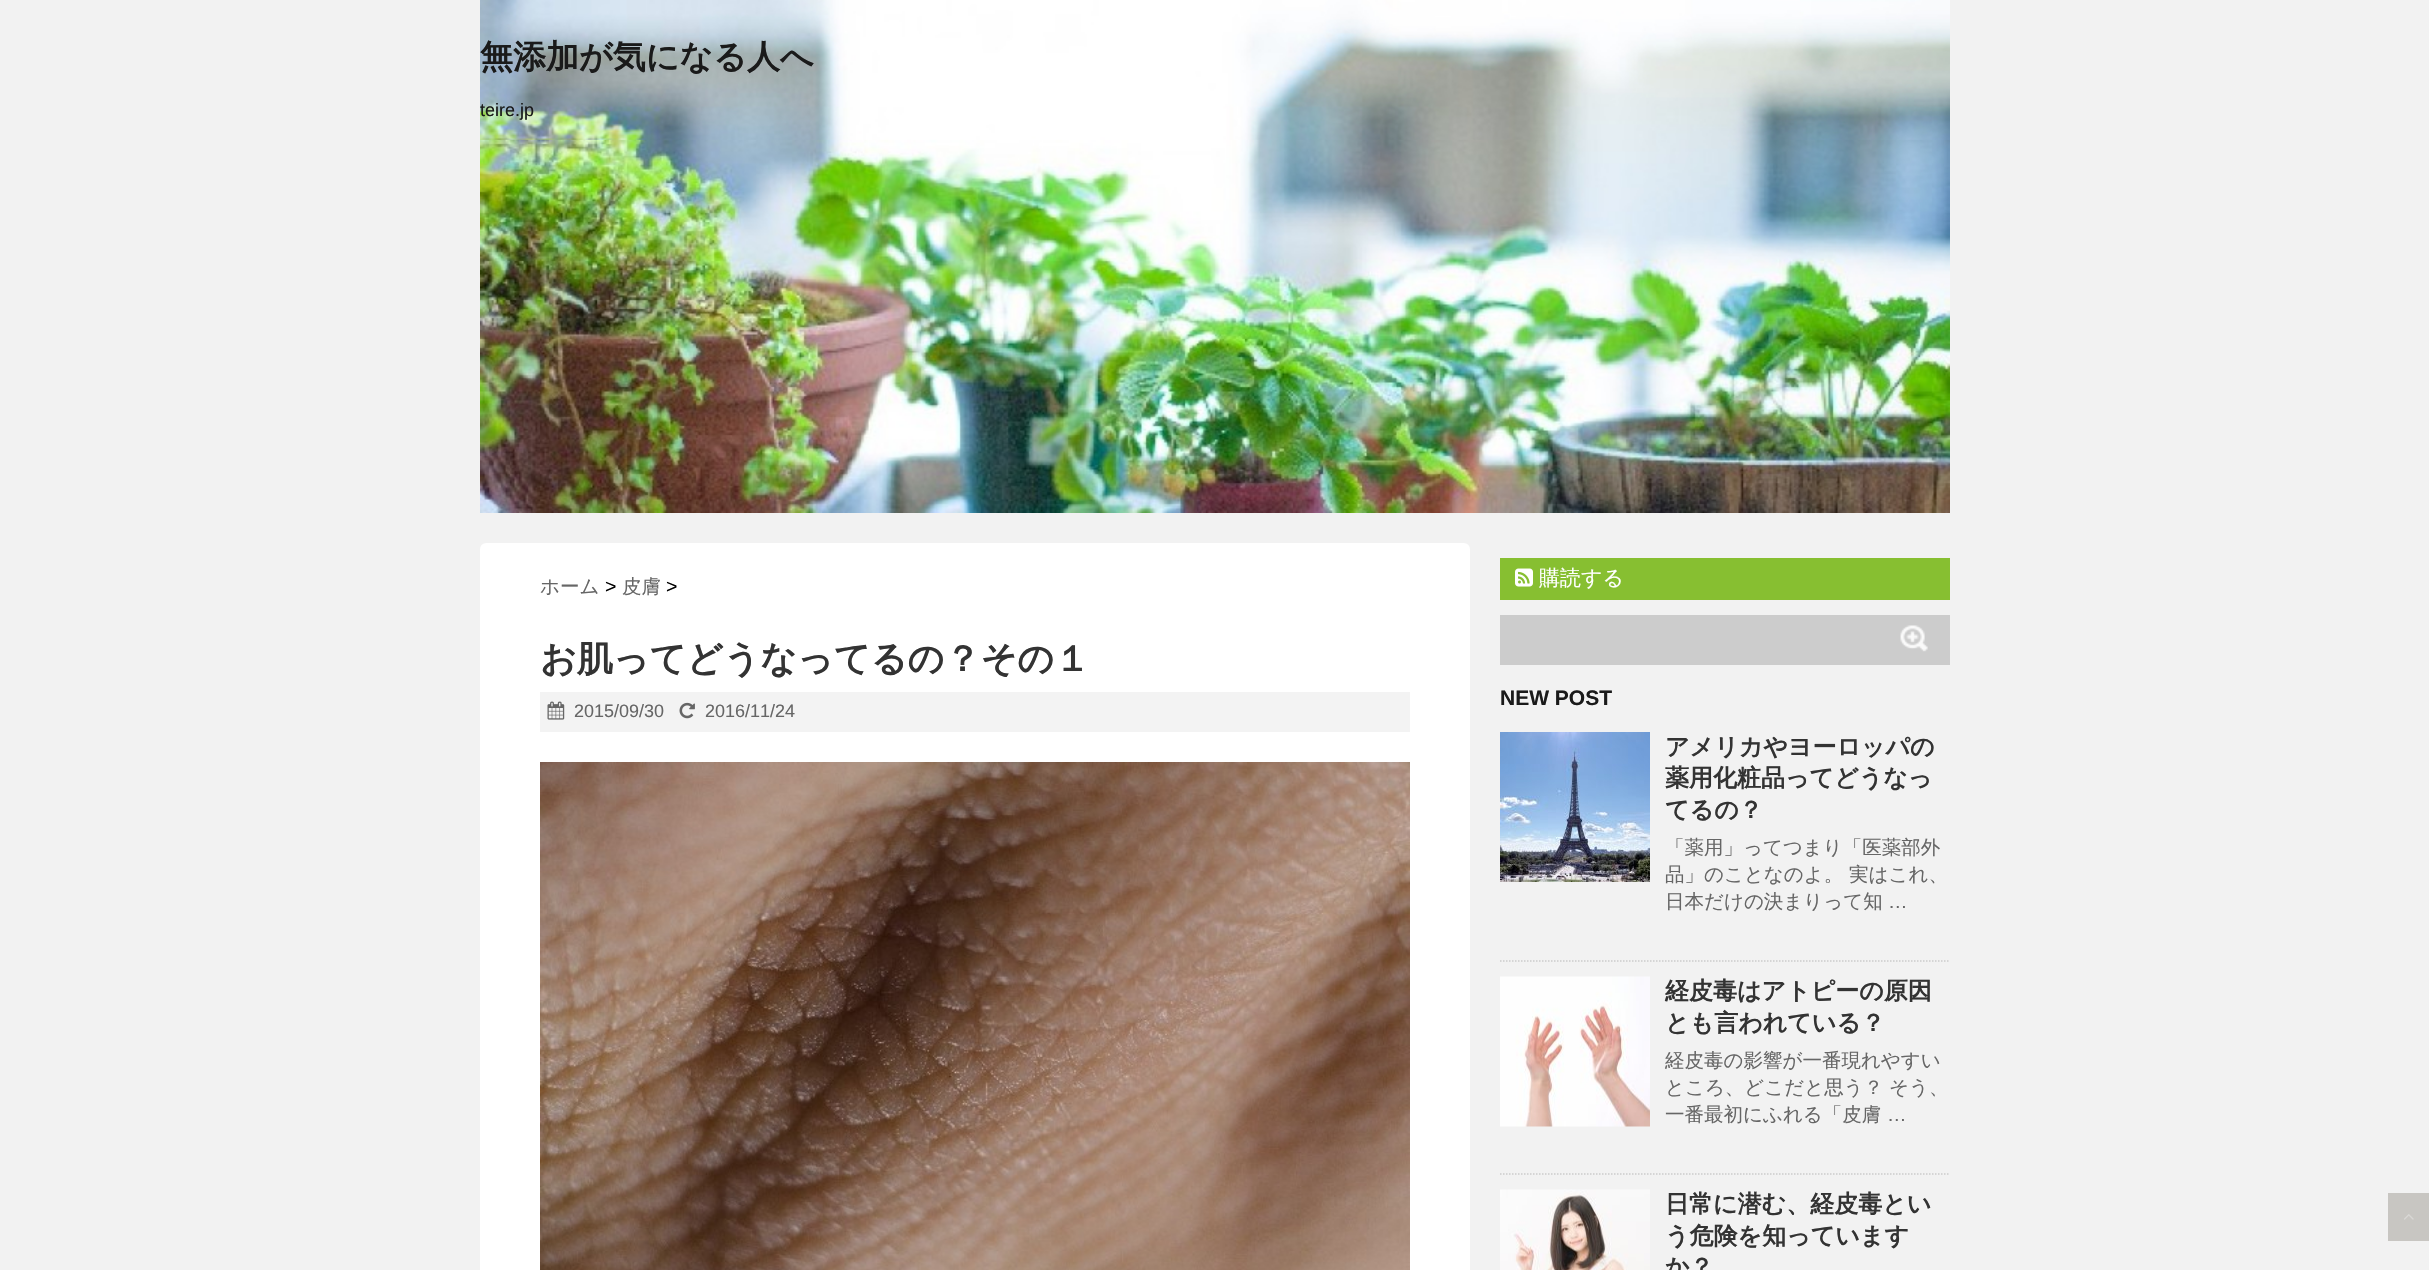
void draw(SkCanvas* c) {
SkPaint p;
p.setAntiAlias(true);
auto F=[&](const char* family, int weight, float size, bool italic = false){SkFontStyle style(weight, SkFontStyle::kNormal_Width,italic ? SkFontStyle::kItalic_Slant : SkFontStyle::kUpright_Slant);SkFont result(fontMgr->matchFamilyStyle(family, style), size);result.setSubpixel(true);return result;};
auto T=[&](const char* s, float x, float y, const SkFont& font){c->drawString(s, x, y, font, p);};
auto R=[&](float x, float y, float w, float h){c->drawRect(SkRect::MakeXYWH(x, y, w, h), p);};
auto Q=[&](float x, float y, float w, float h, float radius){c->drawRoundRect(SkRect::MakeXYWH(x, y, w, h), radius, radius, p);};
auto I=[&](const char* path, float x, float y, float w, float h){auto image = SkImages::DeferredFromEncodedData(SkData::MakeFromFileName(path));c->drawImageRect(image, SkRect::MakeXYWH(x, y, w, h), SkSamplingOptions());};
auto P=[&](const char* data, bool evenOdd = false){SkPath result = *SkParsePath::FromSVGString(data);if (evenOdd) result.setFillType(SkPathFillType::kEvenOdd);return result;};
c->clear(0xfff2f2f2);
I("1.png",480,0,1470,140);
auto f1 = F("WenQuanYi Zen Hei",700,33);
p.setColor(0xff1a1a1a);
T("無添加が気になる人へ",480,68,f1);
auto f2 = F("Liberation Sans",400,18);
T("teire.jp",480,116,f2);
I("2.png",480,139,1470,374);
p.setColor(0xffffffff);
Q(480,543,990,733,6);
auto f3 = F("WenQuanYi Zen Hei",500,19.5);
p.setColor(0xff666666);
T("ホーム",540,593,f3);
auto f4 = F("Liberation Sans",400,19.5);
p.setColor(0xff000000);
T(">",605,593,f4);
p.setColor(0xff666666);
T("皮膚",622,593,f3);
p.setColor(0xff000000);
T(">",666,593,f4);
auto f5 = F("WenQuanYi Zen Hei",700,36);
p.setColor(0xff333333);
T("お肌ってどうなってるの？その１",540,671,f5);
p.setColor(0xfff3f3f3);
R(540,692,870,40);
I("3.png",547,701,18,19);
p.setColor(0xff666666);
T("2015/09/30",574,717,f2);
I("4.png",679,702,16,17);
T("2016/11/24",705,717,f2);
I("5.png",540,762,870,508);
p.setColor(0xff87bf31);
R(1500,558,450,42);
I("6.png",1515,568,18,19);
auto f6 = F("WenQuanYi Zen Hei",500,21);
p.setColor(0xffffffff);
T("購読する",1539,585,f6);
p.setColor(0xffcccccc);
R(1500,615,450,50);
I("7.png",1900,625,28,27);
auto f7 = F("Liberation Sans",700,21);
p.setColor(0xff1a1a1a);
T("NEW POST",1500,705,f7);
p.setStroke(true);
p.setStrokeWidth(1.5);
p.setColor(0xffcccccc);
p.setPathEffect(SkDashPathEffect::Make({{1.5f,1.5f}}, 0));
c->drawPath(P("M1500 961h450"),p);
p.setPathEffect(nullptr);
I("8.png",1500,732,150,150);
auto f8 = F("WenQuanYi Zen Hei",700,24);
p.setStroke(false);
p.setColor(0xff333333);
T("アメリカやヨーロッパの",1665,755,f8);
T("薬用化粧品ってどうなっ",1665,786,f8);
T("てるの？",1665,818,f8);
p.setColor(0xff666666);
T("「薬用」ってつまり「医薬部外",1665,854,f3);
T("品」のことなのよ。 実はこれ、",1665,881,f3);
T("日本だけの決まりって知",1665,908,f3);
T("…",1888,908,f4);
p.setStroke(true);
p.setColor(0xffcccccc);
p.setPathEffect(SkDashPathEffect::Make({{1.5f,1.5f}}, 0));
c->drawPath(P("M1500 1174h450"),p);
p.setPathEffect(nullptr);
I("9.png",1500,976,150,151);
p.setStroke(false);
p.setColor(0xff333333);
T("経皮毒はアトピーの原因",1665,999,f8);
T("とも言われている？",1665,1031,f8);
p.setColor(0xff666666);
T("経皮毒の影響が一番現れやすい",1665,1067,f3);
T("ところ、どこだと思う？ そう、",1665,1094,f3);
T("一番最初にふれる「皮膚",1665,1121,f3);
T("…",1887,1121,f4);
I("10.png",1500,1189,150,81);
p.setColor(0xff333333);
T("日常に潜む、経皮毒とい",1665,1212,f8);
T("う危険を知っています",1665,1244,f8);
T("か？",1665,1275,f8);
p.setColor(0xffc8c6c2);
R(2388,1193,41,48);
I("11.png",2404,1214,10,6);
}
